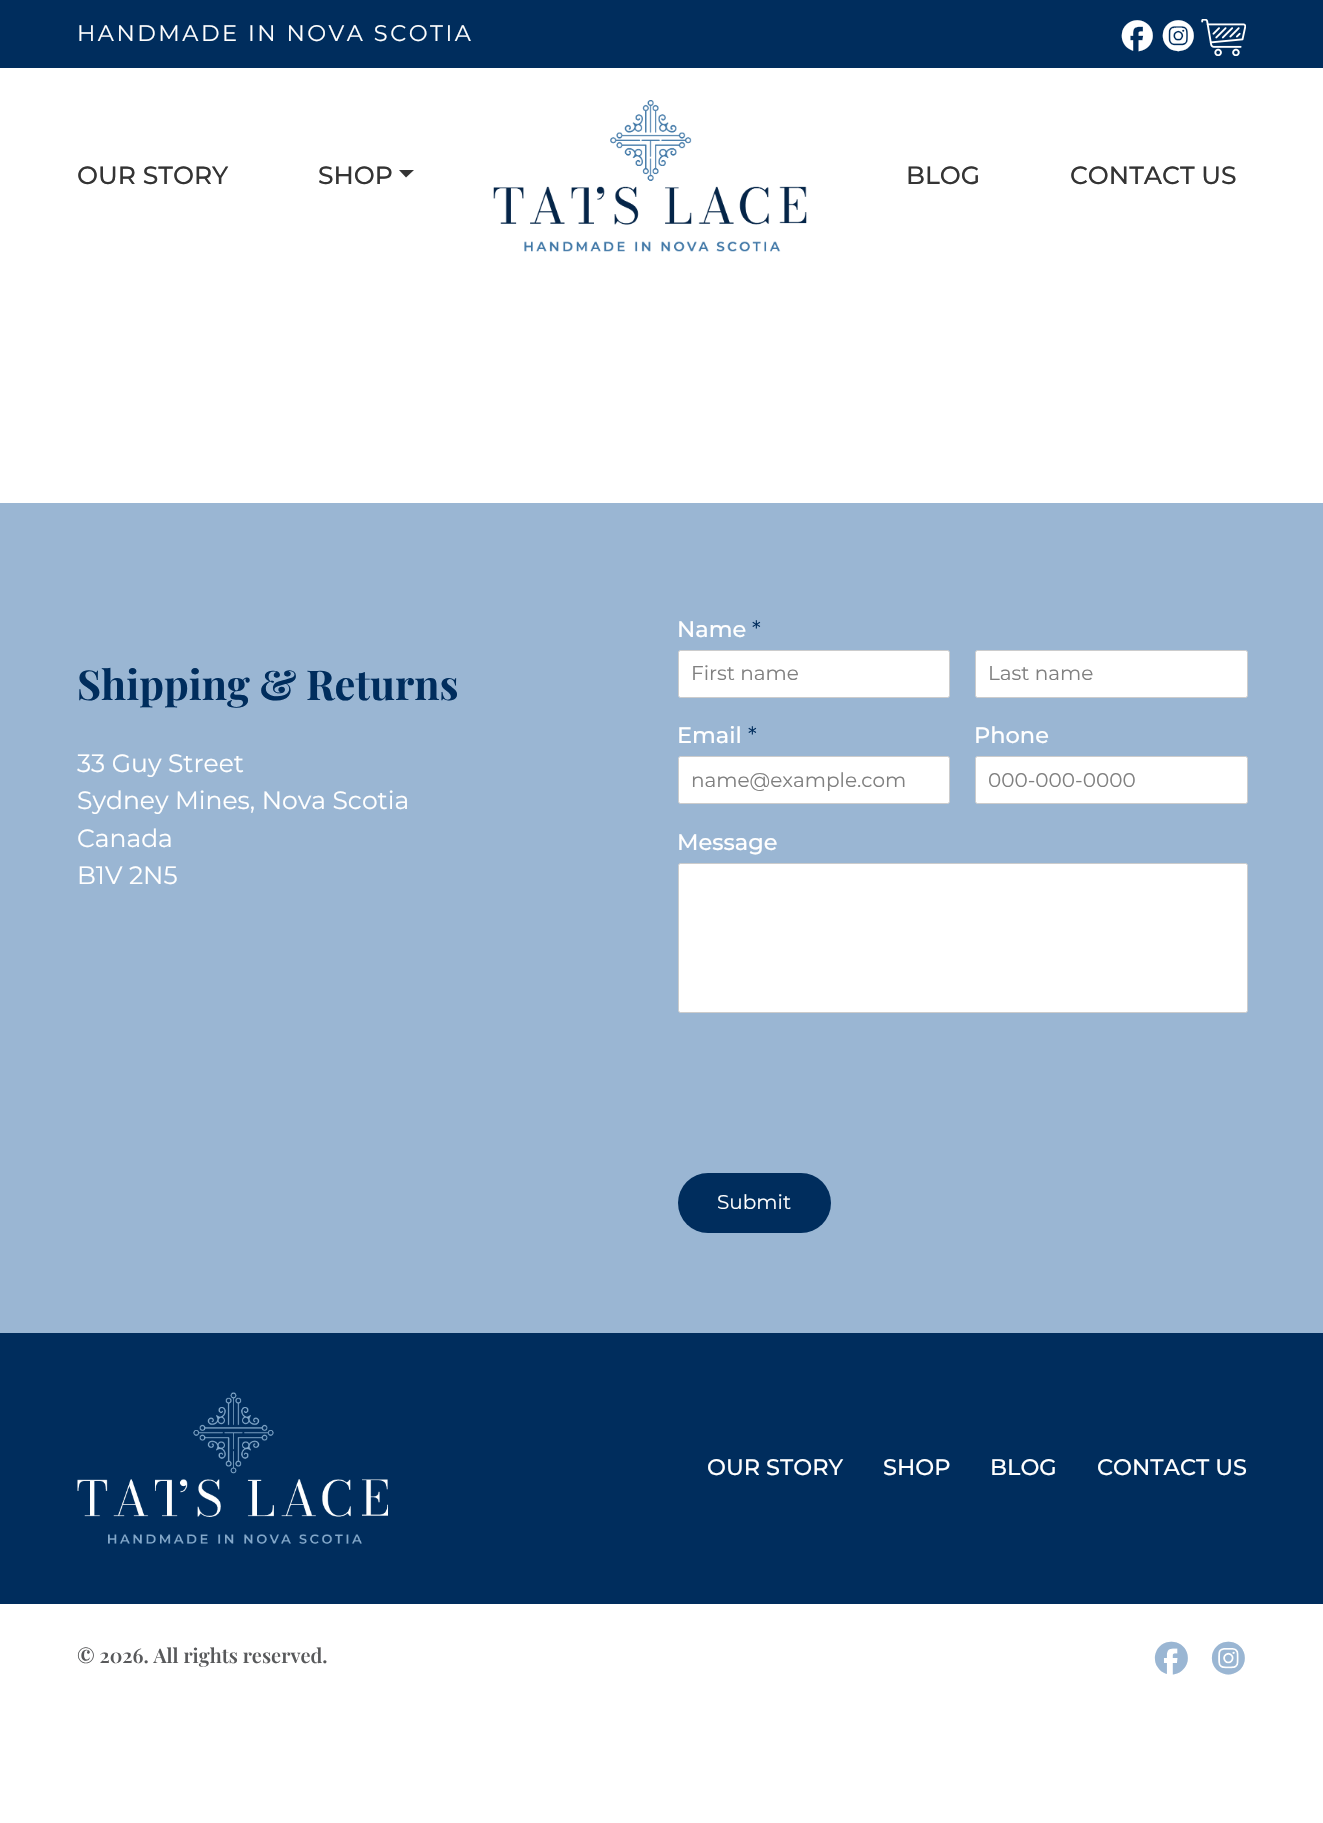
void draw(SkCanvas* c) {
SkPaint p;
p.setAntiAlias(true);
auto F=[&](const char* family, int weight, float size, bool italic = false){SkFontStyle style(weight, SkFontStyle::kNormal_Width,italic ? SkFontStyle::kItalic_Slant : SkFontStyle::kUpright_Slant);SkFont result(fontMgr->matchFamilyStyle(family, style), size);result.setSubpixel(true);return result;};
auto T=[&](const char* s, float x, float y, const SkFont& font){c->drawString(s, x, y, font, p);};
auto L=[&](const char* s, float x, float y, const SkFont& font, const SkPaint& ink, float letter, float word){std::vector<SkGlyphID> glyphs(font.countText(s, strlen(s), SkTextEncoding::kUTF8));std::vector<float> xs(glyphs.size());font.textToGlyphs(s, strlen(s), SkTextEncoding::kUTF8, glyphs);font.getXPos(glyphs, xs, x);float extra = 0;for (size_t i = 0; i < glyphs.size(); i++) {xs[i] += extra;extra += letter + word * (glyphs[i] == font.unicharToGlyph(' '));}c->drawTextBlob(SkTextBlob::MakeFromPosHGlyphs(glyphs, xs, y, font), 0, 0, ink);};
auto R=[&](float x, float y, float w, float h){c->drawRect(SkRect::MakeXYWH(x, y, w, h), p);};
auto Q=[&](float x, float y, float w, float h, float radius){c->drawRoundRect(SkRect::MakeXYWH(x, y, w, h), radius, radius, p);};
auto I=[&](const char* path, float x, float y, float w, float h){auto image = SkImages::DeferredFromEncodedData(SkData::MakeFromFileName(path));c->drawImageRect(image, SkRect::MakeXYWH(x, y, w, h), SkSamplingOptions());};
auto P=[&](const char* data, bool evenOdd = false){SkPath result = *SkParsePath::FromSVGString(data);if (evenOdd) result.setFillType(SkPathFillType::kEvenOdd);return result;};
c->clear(0xffffffff);
p.setColor(0xff002d5d);
R(0,0,1323,68);
auto f1 = F("Montserrat",400,22.5);
p.setColor(0xffffffff);
L("HANDMADE IN NOVA SCOTIA",77,41,f1,p,2.5,0);
auto f2 = F("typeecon",400,32);
T("F I",1120,46,f2);
I("1.png",1201,19,45,37);
auto f3 = F("Montserrat",500,25);
p.setColor(0xff343434);
T("OUR STORY",77,184,f3);
T("SHOP",318,184,f3);
c->drawPath(P("M399 170h15l-8 7.5z"),p);
I("2.png",493,100,314,152);
T("BLOG",906,184,f3);
T("CONTACT US",1070,184,f3);
p.setColor(0xff9ab6d3);
R(0,503,1323,830);
auto f4 = F("Playfair Display",700,41.25);
p.setColor(0xff002d5d);
T("Shipping & Returns",77,700,f4);
auto f5 = F("Montserrat",400,25);
p.setColor(0xffffffff);
T("33 Guy Street",77,772,f5);
T("Sydney Mines, Nova Scotia",77,809,f5);
T("Canada",77,847,f5);
T("B1V 2N5",77,884,f5);
auto f6 = F("Montserrat",500,22.5);
T("Name",677,637,f6);
p.setColor(0xff002d5d);
T("*",752,637,f1);
p.setColor(0xffffffff);
c->drawRoundRect(SkRect::MakeXYWH(678.5,650.5,271,47),2,2,p);
p.setStroke(true);
p.setStrokeWidth(1);
p.setColor(0xffcccccc);
c->drawRoundRect(SkRect::MakeXYWH(678.5,650.5,271,47),2,2,p);
auto f7 = F("Montserrat",400,20);
p.setStroke(false);
p.setColor(0xff808080);
T("First name",691,680,f7);
p.setColor(0xffffffff);
c->drawRoundRect(SkRect::MakeXYWH(975.5,650.5,272,47),2,2,p);
p.setStroke(true);
p.setColor(0xffcccccc);
c->drawRoundRect(SkRect::MakeXYWH(975.5,650.5,272,47),2,2,p);
p.setStroke(false);
p.setColor(0xff808080);
T("Last name",988,680,f7);
p.setColor(0xffffffff);
T("Email",677,743,f6);
p.setColor(0xff002d5d);
T("*",748,743,f1);
p.setColor(0xffffffff);
c->drawRoundRect(SkRect::MakeXYWH(678.5,756.5,271,47),2,2,p);
p.setStroke(true);
p.setColor(0xffcccccc);
c->drawRoundRect(SkRect::MakeXYWH(678.5,756.5,271,47),2,2,p);
p.setStroke(false);
p.setColor(0xff808080);
T("name@example.com",691,787,f7);
p.setColor(0xffffffff);
T("Phone",974,743,f6);
c->drawRoundRect(SkRect::MakeXYWH(975.5,756.5,272,47),2,2,p);
p.setStroke(true);
p.setColor(0xffcccccc);
c->drawRoundRect(SkRect::MakeXYWH(975.5,756.5,272,47),2,2,p);
p.setStroke(false);
p.setColor(0xff808080);
T("000-000-0000",988,787,f7);
p.setColor(0xffffffff);
T("Message",677,850,f6);
c->drawRoundRect(SkRect::MakeXYWH(678.5,863.5,569,149),2,2,p);
p.setStroke(true);
p.setColor(0xffcccccc);
c->drawRoundRect(SkRect::MakeXYWH(678.5,863.5,569,149),2,2,p);
p.setStroke(false);
p.setColor(0xff002d5d);
Q(678,1173,153,60,30);
p.setColor(0xffffffff);
T("Submit",717,1209,f7);
p.setColor(0xff002d5d);
R(0,1333,1323,271);
I("3.png",77,1392,311,152);
p.setColor(0xffffffff);
T("OUR STORY",707,1475,f6);
T("SHOP",883,1475,f6);
T("BLOG",990,1475,f6);
T("CONTACT US",1097,1475,f6);
auto f8 = F("Playfair Display",600,20);
p.setColor(0xff58595b);
T("© 2026. All rights reserved.",77,1663,f8);
auto f9 = F("typeecon",400,34);
p.setColor(0xff9ab6d3);
T("F",1153,1669,f9);
T("I",1210,1669,f9);
}
